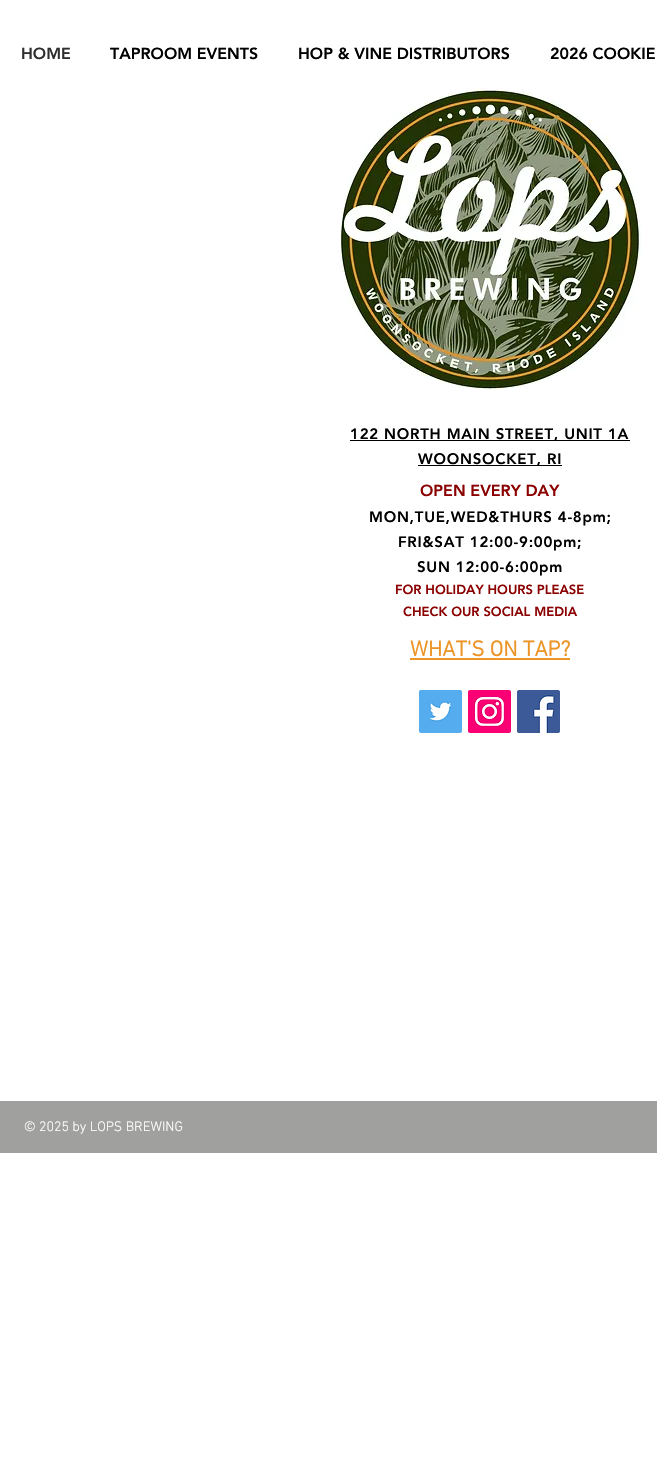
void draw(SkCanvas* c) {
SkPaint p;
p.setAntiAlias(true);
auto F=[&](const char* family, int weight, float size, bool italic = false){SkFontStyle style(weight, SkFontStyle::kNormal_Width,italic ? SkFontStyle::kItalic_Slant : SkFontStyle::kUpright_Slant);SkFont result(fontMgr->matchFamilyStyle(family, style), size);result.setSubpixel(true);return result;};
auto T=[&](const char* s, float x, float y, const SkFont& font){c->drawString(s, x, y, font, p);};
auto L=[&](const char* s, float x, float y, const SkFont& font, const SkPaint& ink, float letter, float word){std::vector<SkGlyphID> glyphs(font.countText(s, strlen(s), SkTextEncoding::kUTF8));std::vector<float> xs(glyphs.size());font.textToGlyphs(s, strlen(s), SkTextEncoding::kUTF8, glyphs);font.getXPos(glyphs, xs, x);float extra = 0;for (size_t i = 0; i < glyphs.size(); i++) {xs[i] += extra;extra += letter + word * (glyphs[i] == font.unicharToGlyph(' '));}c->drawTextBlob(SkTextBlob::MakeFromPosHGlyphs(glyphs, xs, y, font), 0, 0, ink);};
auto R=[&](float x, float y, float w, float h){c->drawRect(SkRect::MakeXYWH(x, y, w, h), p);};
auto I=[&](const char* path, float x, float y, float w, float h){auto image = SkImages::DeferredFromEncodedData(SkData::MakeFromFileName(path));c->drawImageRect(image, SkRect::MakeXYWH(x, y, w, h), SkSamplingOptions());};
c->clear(0xffffffff);
auto f1 = F("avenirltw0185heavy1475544",900,16);
p.setColor(0xff2f2e2e);
T("HOME",21,59,f1);
p.setColor(0xff000000);
T("TAPROOM EVENTS",110,59,f1);
T("HOP & VINE DISTRIBUTORS",298,59,f1);
T("2026 COOKIE",550,59,f1);
I("1.png",340,88,301,302);
R(350,440,280,1);
auto f2 = F("avenirltw0185heavy1475544",900,15);
L("122 NORTH MAIN STREET, UNIT 1A",350,439,f2,p,.75,0);
R(418,465,144,1);
L("WOONSOCKET, RI",418,464,f2,p,.75,0);
p.setColor(0xff8b0000);
T("OPEN EVERY DAY",420,496,f1);
p.setColor(0xff000000);
L("MON,TUE,WED&THURS 4-8pm;",369,522,f2,p,.75,0);
L("FRI&SAT 12:00-9:00pm;",398,547,f2,p,.75,0);
L("SUN 12:00-6:00pm",417,572,f2,p,.75,0);
auto f3 = F("avenirltw0185heavy1475544",900,13);
p.setColor(0xff8b0000);
T("FOR HOLIDAY HOURS PLEASE",395,594,f3);
T("CHECK OUR SOCIAL MEDIA",403,616,f3);
auto f4 = F("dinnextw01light",700,22);
p.setColor(0xffec9426);
T("WHAT'S ON TAP?",410,656,f4);
R(410,658,160,2);
I("2.png",419,690,43,43);
I("3.png",468,690,43,43);
I("4.png",517,690,43,43);
p.setColor(0xffa0a09f);
R(0,1101,657,52);
auto f5 = F("dinnextw01light",300,14);
p.setColor(0xffffffff);
T("© 2025 by LOPS BREWING",24,1131,f5);
}
